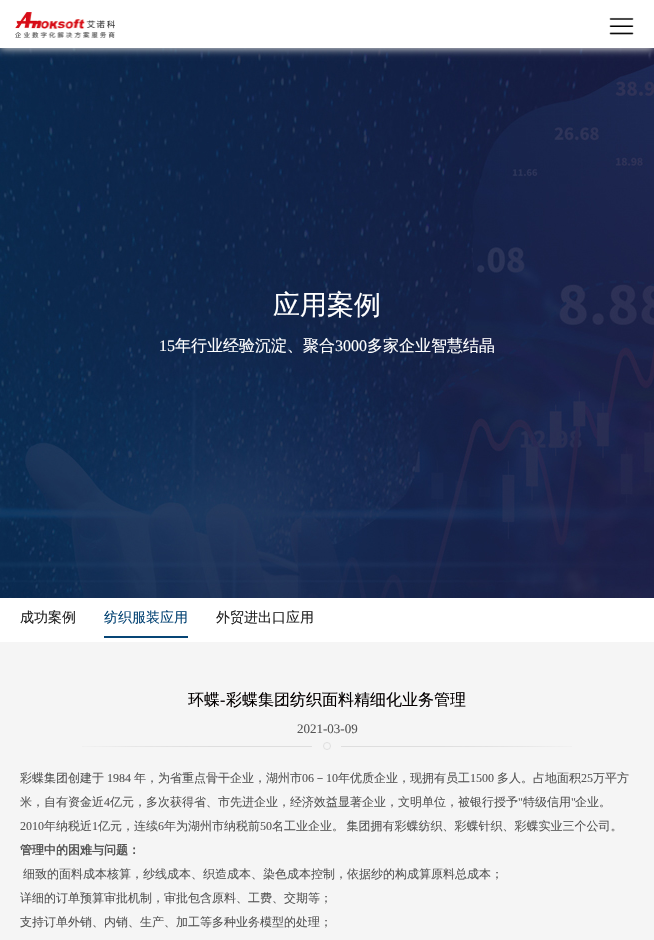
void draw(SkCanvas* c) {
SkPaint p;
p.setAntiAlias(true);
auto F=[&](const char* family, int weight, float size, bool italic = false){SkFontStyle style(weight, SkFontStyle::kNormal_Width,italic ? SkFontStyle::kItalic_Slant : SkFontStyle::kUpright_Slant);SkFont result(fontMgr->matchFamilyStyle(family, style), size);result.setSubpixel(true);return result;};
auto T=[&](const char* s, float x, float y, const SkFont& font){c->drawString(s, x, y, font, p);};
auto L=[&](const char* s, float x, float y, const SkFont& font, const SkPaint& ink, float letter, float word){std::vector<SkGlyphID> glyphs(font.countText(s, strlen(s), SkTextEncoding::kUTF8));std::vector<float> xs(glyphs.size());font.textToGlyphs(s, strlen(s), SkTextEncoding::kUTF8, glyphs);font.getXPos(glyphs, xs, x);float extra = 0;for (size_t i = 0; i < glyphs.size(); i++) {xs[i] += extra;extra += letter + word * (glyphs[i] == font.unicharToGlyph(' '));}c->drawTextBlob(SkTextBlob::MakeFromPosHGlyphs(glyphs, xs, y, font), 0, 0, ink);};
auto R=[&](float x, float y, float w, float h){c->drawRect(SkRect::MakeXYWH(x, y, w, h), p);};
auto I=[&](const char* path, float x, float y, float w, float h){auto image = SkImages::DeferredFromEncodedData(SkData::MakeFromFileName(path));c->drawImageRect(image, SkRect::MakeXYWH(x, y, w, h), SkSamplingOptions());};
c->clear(0xffffffff);
I("3.png",0,48,654,550);
p.setColor(0xffdddddd);
p.setMaskFilter(SkMaskFilter::MakeBlur(kNormal_SkBlurStyle, 4));
c->drawRect(SkRect::MakeXYWH(0,1,654,48),p);
p.setMaskFilter(nullptr);
p.setColor(0xffffffff);
R(0,0,654,48);
I("1.png",15,12,100,26);
I("2.png",609,17,25,18);
auto f1 = F("WenQuanYi Zen Hei",500,27);
T("应用案例",273,314,f1);
auto f2 = F("Liberation Serif",400,16);
T("15",159,351,f2);
auto f3 = F("WenQuanYi Zen Hei",500,16);
T("年行业经验沉淀、聚合",175,351,f3);
T("3000",335,351,f2);
T("多家企业智慧结晶",367,351,f3);
auto f4 = F("WenQuanYi Zen Hei",500,14);
p.setColor(0xff222222);
T("成功案例",20,622,f4);
p.setColor(0xff064575);
T("纺织服装应用",104,622,f4);
R(104,636,84,2);
p.setColor(0xff222222);
T("外贸进出口应用",216,622,f4);
p.setColor(0xfff5f5f5);
R(0,642,654,298);
p.setColor(0xff040000);
T("环蝶",188,705,f3);
T("-",220,705,f2);
T("彩蝶集团纺织面料精细化业务管理",226,705,f3);
auto f5 = F("Liberation Serif",400,13);
p.setColor(0xff555555);
T("2021-03-09",297,733,f5);
p.setStroke(true);
p.setStrokeWidth(1);
p.setColor(0xffdfdfdf);
c->drawCircle(327,746,3.5,p);
I("4.png",82,746,230,1);
I("5.png",341,746,231,1);
auto f6 = F("WenQuanYi Zen Hei",500,12);
p.setStroke(false);
p.setColor(0xff555555);
T("彩蝶集团创建于",20,782,f6);
auto f7 = F("Liberation Serif",400,12);
T("1984",107,782,f7);
T("年，为省重点骨干企业，湖州市",134,782,f6);
T("06",302,782,f7);
T("－",314,782,f6);
T("10",326,782,f7);
T("年优质企业，现拥有员工",338,782,f6);
T("1500",470,782,f7);
T("多人。占地面积",497,782,f6);
T("25",581,782,f7);
T("万平方",593,782,f6);
T("米，自有资金近",20,806,f6);
T("4",104,806,f7);
T("亿元，多次获得省、市先进企业，经济效益显著企业，文明单位，被银行授予",110,806,f6);
T("\"",518,806,f7);
T("特级信用",523,806,f6);
T("\"",571,806,f7);
T("企业。",575,806,f6);
T("2010",20,830,f7);
T("年纳税近",44,830,f6);
T("1",92,830,f7);
T("亿元，连续",98,830,f6);
T("6",158,830,f7);
T("年为湖州市纳税前",164,830,f6);
T("50",260,830,f7);
L("名工业企业。 集团拥有彩蝶纺织、彩蝶针织、彩蝶实业三个公司。",272,830,f6,p,0,-1);
auto f8 = F("WenQuanYi Zen Hei",700,12);
T("管理中的困难与问题：",20,854,f8);
T("细致的面料成本核算，纱线成本、织造成本、染色成本控制，依据纱的构成算原料总成本；",23,878,f6);
T("详细的订单预算审批机制，审批包含原料、工费、交期等；",20,902,f6);
T("支持订单外销、内销、生产、加工等多种业务模型的处理；",20,926,f6);
}
